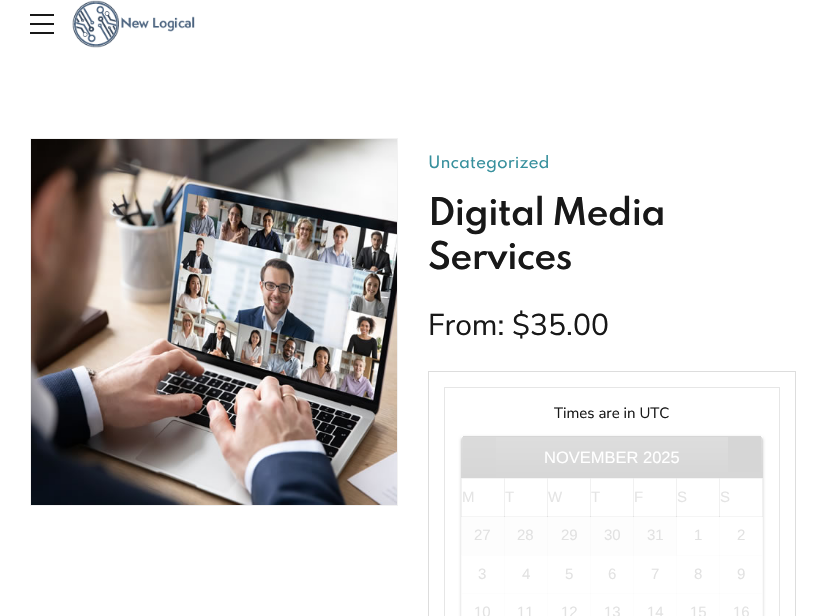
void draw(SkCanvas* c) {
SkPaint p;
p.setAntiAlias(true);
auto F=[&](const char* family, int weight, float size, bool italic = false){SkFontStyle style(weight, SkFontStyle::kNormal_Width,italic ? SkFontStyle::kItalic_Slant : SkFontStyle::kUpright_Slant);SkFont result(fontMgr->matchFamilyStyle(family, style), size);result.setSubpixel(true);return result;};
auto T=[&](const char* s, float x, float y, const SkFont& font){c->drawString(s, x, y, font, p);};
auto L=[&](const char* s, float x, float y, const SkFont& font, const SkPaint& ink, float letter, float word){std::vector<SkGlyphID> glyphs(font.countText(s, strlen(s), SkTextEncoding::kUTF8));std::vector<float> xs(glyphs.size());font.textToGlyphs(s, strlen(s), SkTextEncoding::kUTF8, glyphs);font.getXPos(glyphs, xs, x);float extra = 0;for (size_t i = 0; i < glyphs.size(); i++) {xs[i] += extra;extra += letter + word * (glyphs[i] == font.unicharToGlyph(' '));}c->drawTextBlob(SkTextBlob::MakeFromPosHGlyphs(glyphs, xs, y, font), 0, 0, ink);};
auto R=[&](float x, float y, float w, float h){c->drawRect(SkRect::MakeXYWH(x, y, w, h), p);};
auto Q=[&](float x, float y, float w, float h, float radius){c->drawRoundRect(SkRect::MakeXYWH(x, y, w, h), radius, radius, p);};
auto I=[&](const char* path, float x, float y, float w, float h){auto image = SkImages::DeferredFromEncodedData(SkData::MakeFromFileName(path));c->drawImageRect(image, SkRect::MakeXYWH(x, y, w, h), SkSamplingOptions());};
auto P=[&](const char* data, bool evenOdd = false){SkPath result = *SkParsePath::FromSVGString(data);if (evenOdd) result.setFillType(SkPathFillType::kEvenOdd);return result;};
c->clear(0xffffffff);
p.setColor(0xff181818);
R(30,14,24,2);
R(30,23,24,2);
R(30,32,24,2);
I("1.png",72,0,123,48);
p.setStroke(true);
p.setStrokeWidth(1);
p.setColor(0xfff2f2f2);
c->drawRect(SkRect::MakeXYWH(30.5,138.5,367,367),p);
I("2.png",31,139,366,366);
auto f1 = F("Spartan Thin",500,15.25);
p.setStroke(false);
p.setColor(0xff37909d);
T("Uncategorized",428,168,f1);
auto f2 = F("Spartan Thin",600,34);
p.setColor(0xff181818);
L("Digital Media",428,225,f2,p,-1,0);
L("Services",428,269,f2,p,-1,0);
auto f3 = F("Nunito Sans",400,30);
T("From: $35.00",428,335,f3);
p.setStroke(true);
p.setColor(0xffdddddd);
c->drawRect(SkRect::MakeXYWH(428.5,371.5,367,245),p);
p.setColor(0xffe6e6e6);
c->drawRect(SkRect::MakeXYWH(444.5,387.5,335,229),p);
auto f4 = F("Nunito Sans",400,15);
p.setStroke(false);
p.setColor(0xff181818);
T("Times are in UTC",554,418,f4);
p.setColor(0x30000000);
p.setMaskFilter(SkMaskFilter::MakeBlur(kNormal_SkBlurStyle, 1.5));
c->drawRoundRect(SkRect::MakeXYWH(461,437,302,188),4,4,p);
p.setMaskFilter(nullptr);
p.setColor(0xffffffff);
Q(461,436,302,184,4);
p.setColor(0xfff9f9f9);
R(634,517,42,38);
R(591,517,42,38);
R(548,517,42,38);
R(505,517,42,38);
R(462,517,42,38);
p.setColor(0xffdcdcdc);
R(504,478,1,39);
R(547,478,1,39);
R(590,478,1,39);
R(633,478,1,39);
R(676,478,1,39);
R(719,478,1,39);
p.setColor(0xfff3f3f3);
R(504,517,1,38);
p.setColor(0xffe5e5e5);
R(461,516,302,1);
p.setColor(0xfff3f3f3);
R(547,517,1,38);
p.setColor(0xffb2b2b2);
R(504,516,1,1);
p.setColor(0xfff3f3f3);
R(590,517,1,38);
p.setColor(0xffb2b2b2);
R(547,516,1,1);
p.setColor(0xfff3f3f3);
R(633,517,1,38);
p.setColor(0xffb2b2b2);
R(590,516,1,1);
p.setColor(0xfff3f3f3);
R(676,517,1,38);
p.setColor(0xffb2b2b2);
R(633,516,1,1);
p.setColor(0xfff9f9f9);
R(719,517,1,99);
p.setColor(0xffb2b2b2);
R(676,516,1,1);
R(719,516,1,1);
p.setColor(0xfff9f9f9);
R(504,555,1,61);
R(461,555,86,1);
R(547,555,1,61);
p.setColor(0xfff2f2f2);
R(504,555,1,1);
p.setColor(0xfff9f9f9);
R(590,555,1,61);
R(547,555,43,1);
p.setColor(0xfff2f2f2);
R(547,555,1,1);
p.setColor(0xfff9f9f9);
R(633,555,1,61);
R(590,555,44,1);
p.setColor(0xfff2f2f2);
R(590,555,1,1);
p.setColor(0xfff9f9f9);
R(676,555,1,61);
R(634,555,129,1);
p.setColor(0xfff2f2f2);
R(633,555,1,1);
R(676,555,1,1);
R(719,555,1,1);
p.setColor(0xfff9f9f9);
R(461,593,302,1);
p.setColor(0xfff2f2f2);
R(504,593,1,1);
R(547,593,1,1);
R(590,593,1,1);
R(633,593,1,1);
R(676,593,1,1);
R(719,593,1,1);
p.setColor(0xfff3f3f3);
R(461,555,1,61);
p.setColor(0xffededed);
R(461,517,1,38);
p.setColor(0xffdcdcdc);
R(461,478,1,39);
p.setColor(0xffcccccc);
R(461,516,1,1);
p.setColor(0xfff3f3f3);
R(762,517,1,99);
p.setColor(0xffdcdcdc);
R(762,478,1,39);
p.setColor(0xffcccccc);
R(762,516,1,1);
c->save();
c->clipPath(P("M465 436h294c2 0 4 2 4 4v38h-302v-38c0-2 2-4 4-4z"),true);
{
const SkColor colors[] = {0xff999999,0xffaaaaaa};
const float stops[] = {0,1};
const SkPoint ends[] = {{612,478}, {612,437}};
p.setShader(SkGradientShader::MakeLinear(ends, colors, stops, 2, SkTileMode::kClamp));
p.setAlpha(255);
}
R(461,437,302,41);
c->restore();
p.setShader(nullptr);
p.setColor(0xff999999);
R(463,436,298,1);
p.setColor(0x59999999);
c->drawPath(P("M465 437h31v40h-33v-40z"),p);
auto f5 = F("Liberation Sans",400,16.5);
p.setColor(0xffffffff);
T("NOVEMBER 2025",544,463,f5);
p.setColor(0xff999999);
R(728,437,33,35);
p.setColor(0xffe6e6e6);
R(461,478,302,1);
p.setColor(0xffd6d6d6);
R(461,478,1,1);
R(504,478,1,1);
auto f6 = F("Liberation Sans",400,15);
p.setColor(0xffbbbbbb);
T("M",462,502,f6);
p.setColor(0xffd6d6d6);
R(547,478,1,1);
p.setColor(0xffbbbbbb);
T("T",505,502,f6);
p.setColor(0xffd6d6d6);
R(590,478,1,1);
p.setColor(0xffbbbbbb);
T("W",548,502,f6);
p.setColor(0xffd6d6d6);
R(633,478,1,1);
p.setColor(0xffbbbbbb);
T("T",591,502,f6);
p.setColor(0xffd6d6d6);
R(676,478,1,1);
p.setColor(0xffbbbbbb);
T("F",634,502,f6);
p.setColor(0xffd6d6d6);
R(719,478,1,1);
p.setColor(0xffbbbbbb);
T("S",677,502,f6);
p.setColor(0xffd6d6d6);
R(762,478,1,1);
p.setColor(0xffbbbbbb);
T("S",720,502,f6);
p.setColor(0xffb5b5b5);
T("27",474,540,f6);
T("28",517,540,f6);
T("29",561,540,f6);
T("30",604,540,f6);
T("31",647,540,f6);
T("1",694,540,f6);
T("2",737,540,f6);
T("3",478,579,f6);
T("4",522,579,f6);
T("5",565,579,f6);
T("6",608,579,f6);
T("7",651,579,f6);
T("8",694,579,f6);
T("9",737,579,f6);
T("10",474,617,f6);
T("11",517,617,f6);
T("12",561,617,f6);
T("13",604,617,f6);
T("14",647,617,f6);
T("15",690,617,f6);
T("16",733,617,f6);
p.setColor(0x99ffffff);
R(461,436,302,180);
}
